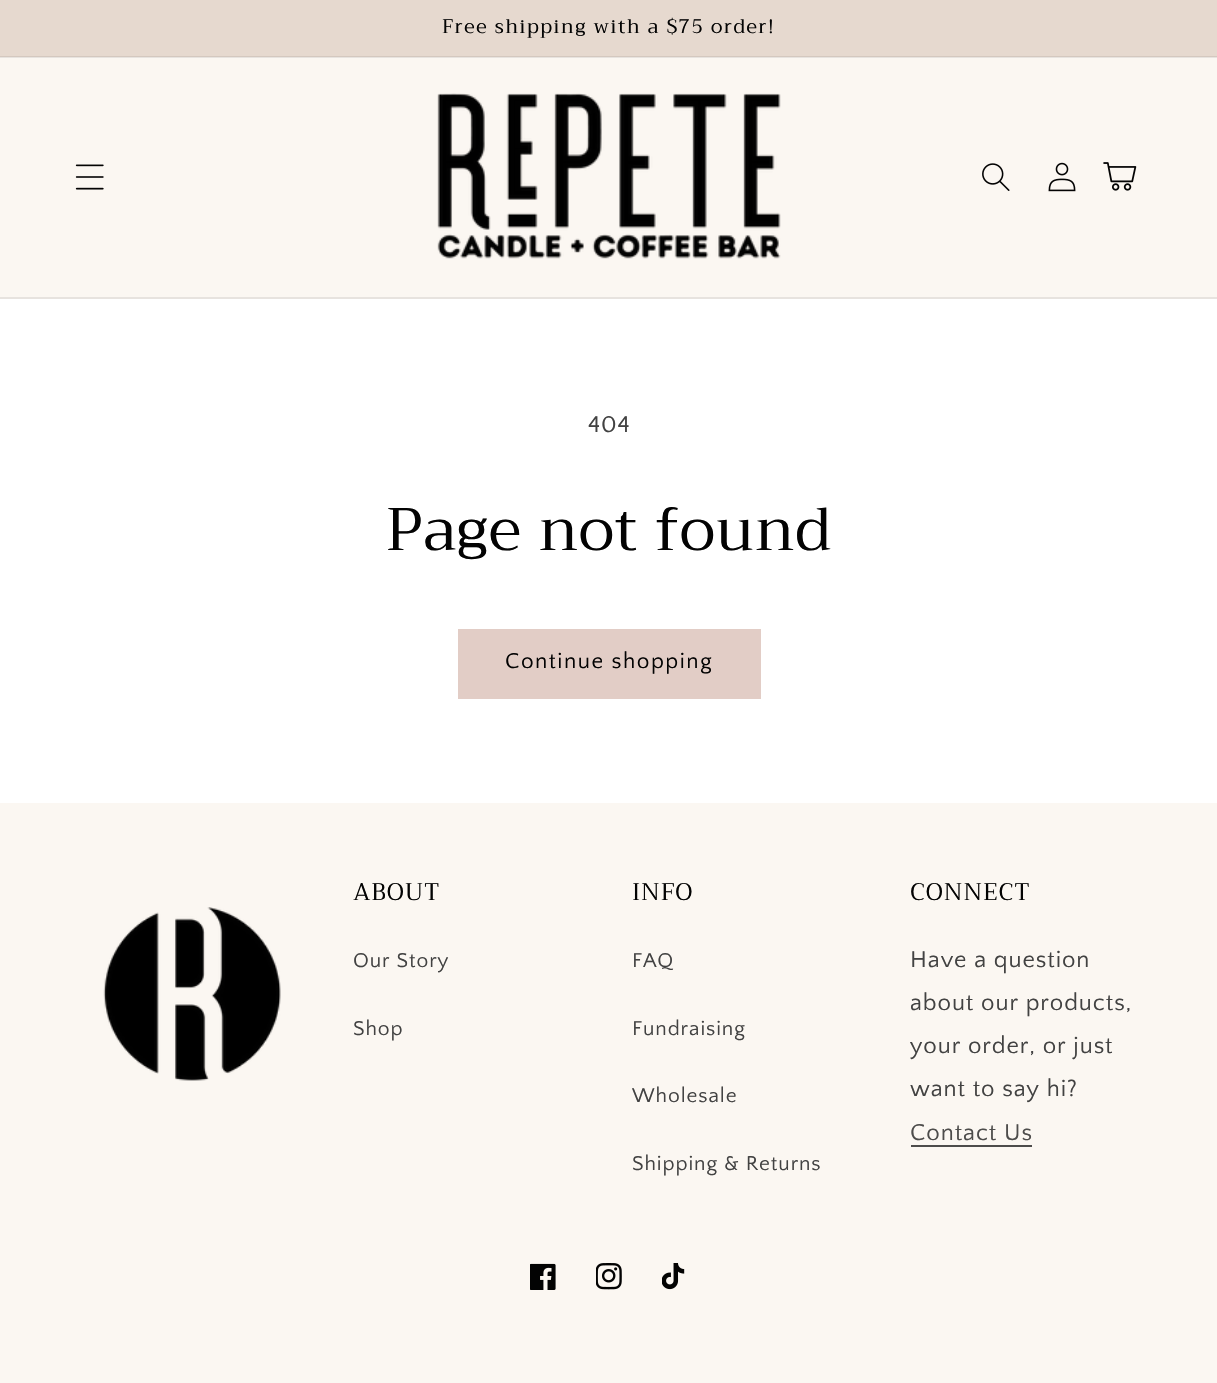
void draw(SkCanvas* c) {
SkPaint p;
p.setAntiAlias(true);
auto F=[&](const char* family, int weight, float size, bool italic = false){SkFontStyle style(weight, SkFontStyle::kNormal_Width,italic ? SkFontStyle::kItalic_Slant : SkFontStyle::kUpright_Slant);SkFont result(fontMgr->matchFamilyStyle(family, style), size);result.setSubpixel(true);return result;};
auto L=[&](const char* s, float x, float y, const SkFont& font, const SkPaint& ink, float letter, float word){std::vector<SkGlyphID> glyphs(font.countText(s, strlen(s), SkTextEncoding::kUTF8));std::vector<float> xs(glyphs.size());font.textToGlyphs(s, strlen(s), SkTextEncoding::kUTF8, glyphs);font.getXPos(glyphs, xs, x);float extra = 0;for (size_t i = 0; i < glyphs.size(); i++) {xs[i] += extra;extra += letter + word * (glyphs[i] == font.unicharToGlyph(' '));}c->drawTextBlob(SkTextBlob::MakeFromPosHGlyphs(glyphs, xs, y, font), 0, 0, ink);};
auto R=[&](float x, float y, float w, float h){c->drawRect(SkRect::MakeXYWH(x, y, w, h), p);};
auto I=[&](const char* path, float x, float y, float w, float h){auto image = SkImages::DeferredFromEncodedData(SkData::MakeFromFileName(path));c->drawImageRect(image, SkRect::MakeXYWH(x, y, w, h), SkSamplingOptions());};
c->clear(0xffffffff);
p.setColor(0xffe6d9cf);
R(0,0,1217,56);
p.setColor(0xffd4c8bf);
R(0,56,1217,1);
auto f1 = F("Trirong",400,19.5);
p.setColor(0xff030303);
L("Free shipping with a $75 order!",442,33,f1,p,1.5,0);
p.setColor(0xfffbf7f2);
R(0,58,1217,239);
p.setColor(0xffe7e3df);
R(0,57,1217,1);
R(0,297,1217,2);
I("1.png",75,164,29,26);
I("2.png",437,93,344,166);
I("3.png",982,163,28,28);
I("4.png",1048,162,28,30);
I("5.png",1103,162,34,29);
auto f2 = F("Quattrocento Sans",400,24);
p.setColor(0xff424242);
L("404",588,432,f2,p,.9,0);
auto f3 = F("Trirong",400,60);
p.setColor(0xff030303);
L("Page not found",386,550,f3,p,.9,0);
p.setStroke(true);
p.setStrokeWidth(2);
p.setColor(0xffe2cdc6);
c->drawRect(SkRect::MakeXYWH(459,630,301,68),p);
p.setStroke(false);
R(460,631,299,66);
auto f4 = F("Quattrocento Sans",400,22.5);
p.setColor(0xff030303);
L("Continue shopping",505,668,f4,p,1.5,0);
p.setColor(0xfffbf7f2);
R(0,803,1217,580);
I("6.png",103,907,178,174);
auto f5 = F("Trirong",400,24);
p.setColor(0xff030303);
L("ABOUT",353,900,f5,p,.9,0);
auto f6 = F("Quattrocento Sans",400,21);
p.setColor(0xff424242);
L("Our Story",353,967,f6,p,.9,0);
L("Shop",353,1035,f6,p,.9,0);
p.setColor(0xff030303);
L("INFO",632,900,f5,p,.9,0);
p.setColor(0xff424242);
L("FAQ",632,967,f6,p,.9,0);
L("Fundraising",632,1035,f6,p,.9,0);
L("Wholesale",632,1102,f6,p,.9,0);
L("Shipping & Returns",632,1170,f6,p,.9,0);
p.setColor(0xff030303);
L("CONNECT",910,900,f5,p,.9,0);
p.setColor(0xff424242);
L("Have a question",910,967,f2,p,.9,0);
L("about our products,",910,1010,f2,p,.9,0);
L("your order, or just",910,1053,f2,p,.9,0);
L("want to say hi?",910,1096,f2,p,.9,0);
p.setColor(0xff4d4c4b);
L("Contact Us",910,1140,f2,p,.9,0);
R(911,1145,121,2);
I("7.png",530,1263,26,27);
I("8.png",596,1263,26,27);
I("9.png",662,1263,23,27);
}
